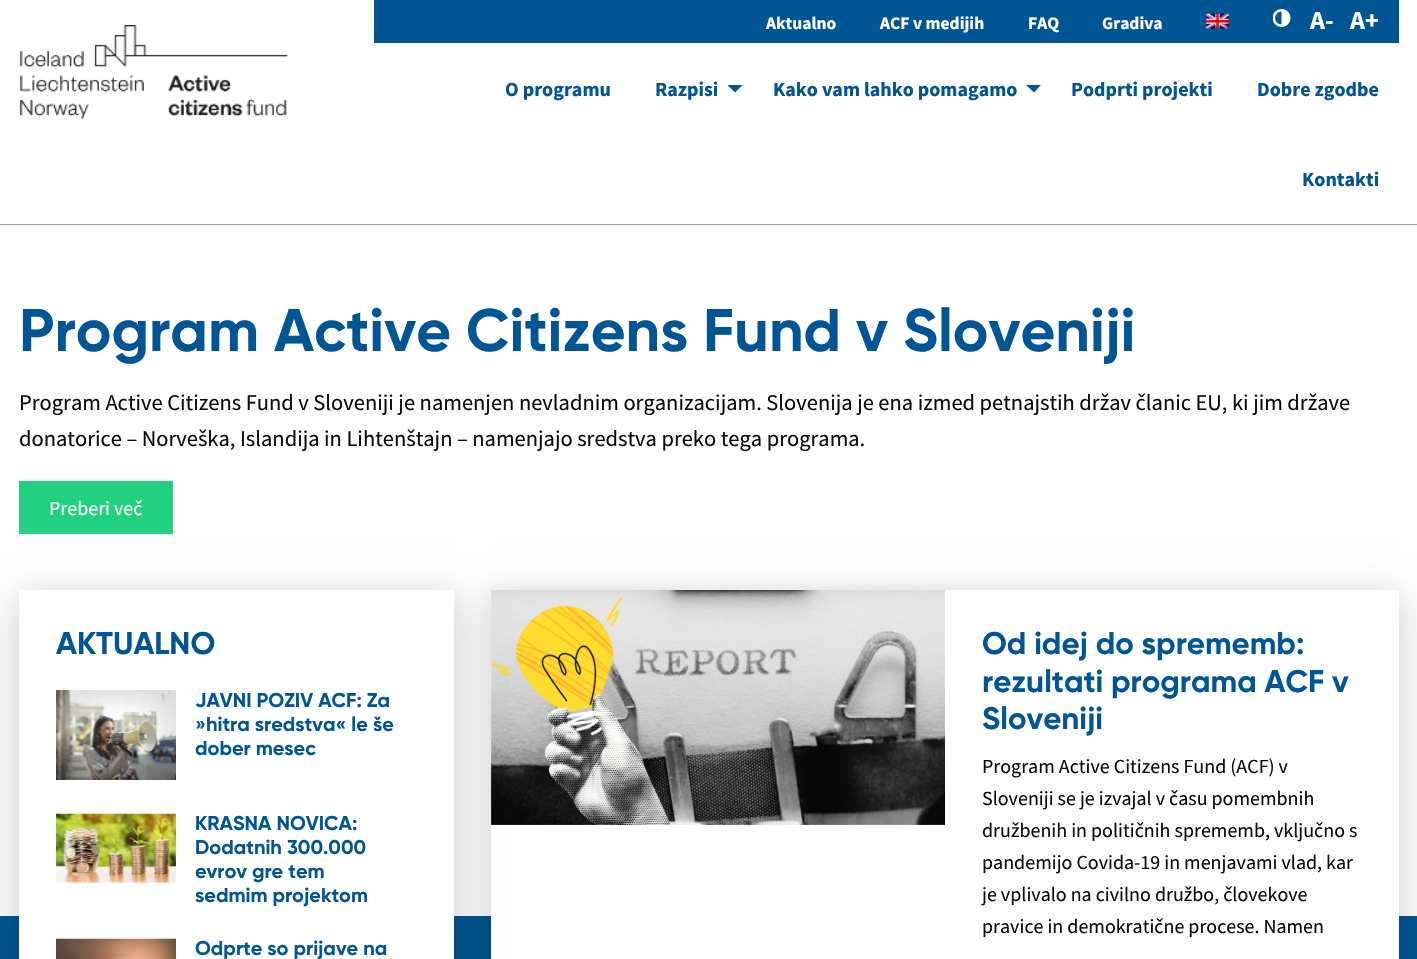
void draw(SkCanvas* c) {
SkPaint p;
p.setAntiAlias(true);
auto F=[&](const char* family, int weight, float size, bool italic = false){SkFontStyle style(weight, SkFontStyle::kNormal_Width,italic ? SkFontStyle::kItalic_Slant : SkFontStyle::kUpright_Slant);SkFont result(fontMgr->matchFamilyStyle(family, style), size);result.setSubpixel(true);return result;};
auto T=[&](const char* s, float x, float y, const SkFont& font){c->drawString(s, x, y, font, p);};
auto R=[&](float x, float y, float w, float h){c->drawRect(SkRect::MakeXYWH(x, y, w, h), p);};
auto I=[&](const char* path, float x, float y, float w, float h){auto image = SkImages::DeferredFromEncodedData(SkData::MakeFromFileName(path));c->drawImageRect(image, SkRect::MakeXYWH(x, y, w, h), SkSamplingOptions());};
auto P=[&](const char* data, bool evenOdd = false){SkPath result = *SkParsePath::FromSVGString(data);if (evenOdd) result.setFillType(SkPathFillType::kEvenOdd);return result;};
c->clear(0xffffffff);
p.setColor(0xff9e9e9e);
R(0,224,1417,1);
I("1.png",19,25,269,94);
p.setColor(0xff005594);
R(374,0,1025,43);
auto f1 = F("Source Sans Pro",700,17.5);
p.setColor(0xffffffff);
T("Aktualno",766,29,f1);
T("ACF v medijih",880,29,f1);
T("FAQ",1028,29,f1);
T("Gradiva",1102,29,f1);
I("2.png",1206,13,23,16);
I("3.png",1273,9,18,18);
auto f2 = F("Source Sans Pro",700,26);
T("A-",1310,29,f2);
T("A+",1350,29,f2);
auto f3 = F("Source Sans Pro",700,20);
p.setColor(0xff005594);
T("O programu",505,96,f3);
T("Razpisi",655,96,f3);
c->drawPath(P("M727.5 85h15l-7.5 7.5z"),p);
T("Kako vam lahko pomagamo",773,96,f3);
c->drawPath(P("M1026 85h15l-7 7.5z"),p);
T("Podprti projekti",1071,96,f3);
T("Dobre zgodbe",1257,96,f3);
T("Kontakti",1302,186,f3);
auto f4 = F("Gilroy",400,60);
T("Program Active Citizens Fund v Sloveniji",19,351,f4);
auto f5 = F("Source Sans Pro",400,22.5);
p.setColor(0xff0a0a0a);
T("Program Active Citizens Fund v Sloveniji je namenjen nevladnim organizacijam. Slovenija je ena izmed petnajstih držav članic EU, ki jim države",19,410,f5);
T("donatorice – Norveška, Islandija in Lihtenštajn – namenjajo sredstva preko tega programa.",19,446,f5);
p.setColor(0xff20d17f);
R(19,481,154,53);
auto f6 = F("Source Sans Pro",400,20);
p.setColor(0xffffffff);
T("Preberi več",49,515,f6);
p.setColor(0xff005594);
R(0,916,1417,43);
p.setColor(0x33000000);
p.setMaskFilter(SkMaskFilter::MakeBlur(kNormal_SkBlurStyle, 19));
c->drawRect(SkRect::MakeXYWH(491,596,908,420),p);
p.setMaskFilter(nullptr);
p.setColor(0xffffffff);
R(491,590,908,369);
I("7.png",491,590,454,235);
p.setColor(0x33000000);
p.setMaskFilter(SkMaskFilter::MakeBlur(kNormal_SkBlurStyle, 19));
c->drawRect(SkRect::MakeXYWH(19,596,435,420),p);
p.setMaskFilter(nullptr);
p.setColor(0xffffffff);
R(19,590,435,369);
auto f7 = F("Gilroy",400,31.25);
p.setColor(0xff005594);
T("AKTUALNO",56,654,f7);
I("4.png",56,690,120,90);
auto f8 = F("Gilroy",400,20);
T("JAVNI POZIV ACF: Za",195,707,f8);
T("»hitra sredstva« le še",195,731,f8);
T("dober mesec",195,755,f8);
I("5.png",56,813,120,70);
T("KRASNA NOVICA:",195,830,f8);
T("Dodatnih 300.000",195,854,f8);
T("evrov gre tem",195,878,f8);
T("sedmim projektom",195,902,f8);
I("6.png",56,938,120,21);
T("Odprte so prijave na",195,955,f8);
T("Od idej do sprememb:",982,654,f7);
T("rezultati programa ACF v",982,692,f7);
T("Sloveniji",982,729,f7);
p.setColor(0xff0a0a0a);
T("Program Active Citizens Fund (ACF) v",982,773,f6);
T("Sloveniji se je izvajal v času pomembnih",982,805,f6);
T("družbenih in političnih sprememb, vključno s",982,837,f6);
T("pandemijo Covida-19 in menjavami vlad, kar",982,869,f6);
T("je vplivalo na civilno družbo, človekove",982,901,f6);
T("pravice in demokratične procese. Namen",982,933,f6);
}
